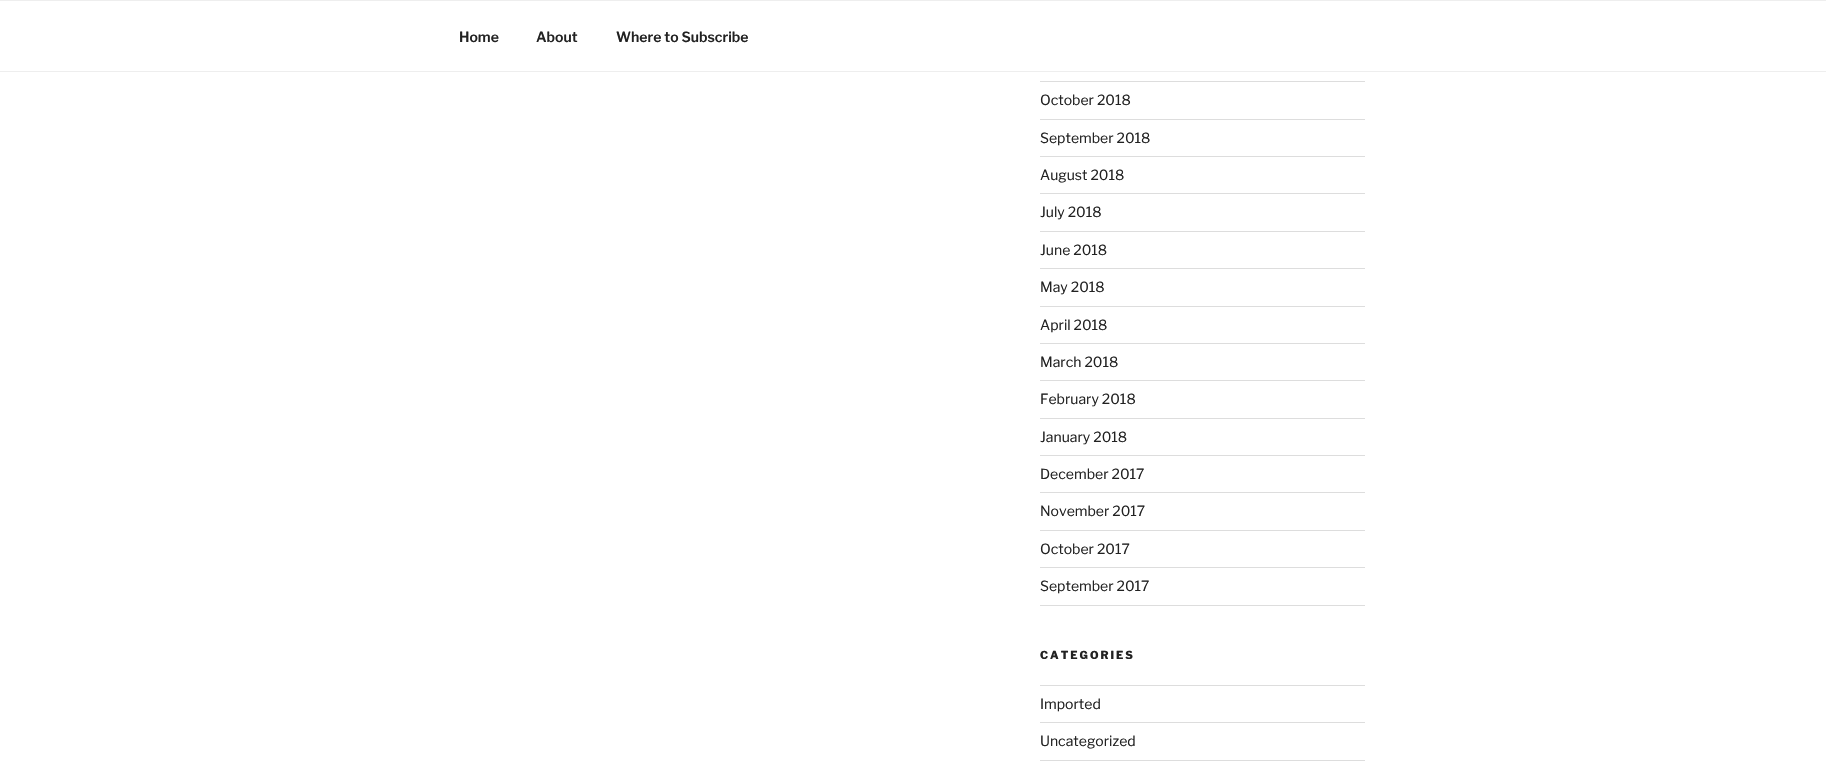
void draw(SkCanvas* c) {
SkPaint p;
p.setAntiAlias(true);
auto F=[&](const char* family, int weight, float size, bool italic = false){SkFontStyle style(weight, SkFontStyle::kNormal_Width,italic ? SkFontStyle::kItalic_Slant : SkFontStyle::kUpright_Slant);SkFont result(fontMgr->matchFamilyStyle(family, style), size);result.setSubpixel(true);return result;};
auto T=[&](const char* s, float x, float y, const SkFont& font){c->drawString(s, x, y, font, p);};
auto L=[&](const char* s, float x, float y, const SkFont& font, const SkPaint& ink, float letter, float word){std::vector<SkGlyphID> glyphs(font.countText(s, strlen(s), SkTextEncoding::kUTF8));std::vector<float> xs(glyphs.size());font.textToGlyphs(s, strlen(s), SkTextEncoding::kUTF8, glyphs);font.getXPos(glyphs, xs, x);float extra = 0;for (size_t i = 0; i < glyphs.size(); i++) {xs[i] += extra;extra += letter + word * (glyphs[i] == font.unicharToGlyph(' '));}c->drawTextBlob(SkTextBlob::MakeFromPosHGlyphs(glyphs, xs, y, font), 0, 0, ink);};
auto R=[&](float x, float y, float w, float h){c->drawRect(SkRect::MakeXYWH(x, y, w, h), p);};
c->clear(0xffffffff);
p.setColor(0xffeeeeee);
R(0,0,1826,1);
R(0,71,1826,1);
auto f1 = F("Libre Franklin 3",100,14);
p.setColor(0xff222222);
T("Home",459,42,f1);
T("About",536,42,f1);
T("Where to Subscribe",616,42,f1);
p.setColor(0xffdddddd);
R(1040,81,325,1);
R(1040,119,325,1);
auto f2 = F("Libre Franklin",100,14);
p.setColor(0xff222222);
T("October 2018",1040,105,f2);
p.setColor(0xffdddddd);
R(1040,156,325,1);
p.setColor(0xff222222);
T("September 2018",1040,143,f2);
p.setColor(0xffdddddd);
R(1040,193,325,1);
p.setColor(0xff222222);
T("August 2018",1040,180,f2);
p.setColor(0xffdddddd);
R(1040,231,325,1);
p.setColor(0xff222222);
T("July 2018",1040,217,f2);
p.setColor(0xffdddddd);
R(1040,268,325,1);
p.setColor(0xff222222);
T("June 2018",1040,255,f2);
p.setColor(0xffdddddd);
R(1040,306,325,1);
p.setColor(0xff222222);
T("May 2018",1040,292,f2);
p.setColor(0xffdddddd);
R(1040,343,325,1);
p.setColor(0xff222222);
T("April 2018",1040,330,f2);
p.setColor(0xffdddddd);
R(1040,380,325,1);
p.setColor(0xff222222);
T("March 2018",1040,367,f2);
p.setColor(0xffdddddd);
R(1040,418,325,1);
p.setColor(0xff222222);
T("February 2018",1040,404,f2);
p.setColor(0xffdddddd);
R(1040,455,325,1);
p.setColor(0xff222222);
T("January 2018",1040,442,f2);
p.setColor(0xffdddddd);
R(1040,492,325,1);
p.setColor(0xff222222);
T("December 2017",1040,479,f2);
p.setColor(0xffdddddd);
R(1040,530,325,1);
p.setColor(0xff222222);
T("November 2017",1040,516,f2);
p.setColor(0xffdddddd);
R(1040,567,325,1);
p.setColor(0xff222222);
T("October 2017",1040,554,f2);
p.setColor(0xffdddddd);
R(1040,605,325,1);
p.setColor(0xff222222);
T("September 2017",1040,591,f2);
auto f3 = F("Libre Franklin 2",100,11);
L("CATEGORIES",1040,659,f3,p,2,0);
p.setColor(0xffdddddd);
R(1040,685,325,1);
R(1040,722,325,1);
p.setColor(0xff222222);
T("Imported",1040,709,f2);
p.setColor(0xffdddddd);
R(1040,760,325,1);
p.setColor(0xff222222);
T("Uncategorized",1040,746,f2);
}
